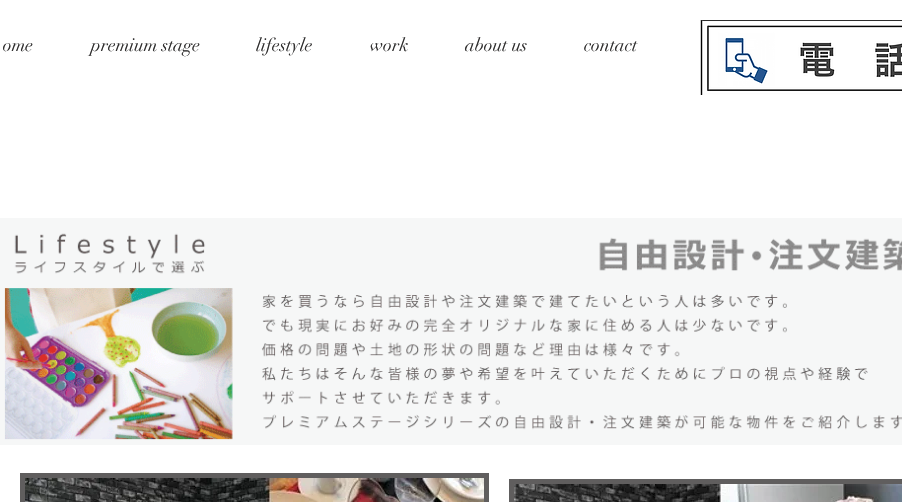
void draw(SkCanvas* c) {
SkPaint p;
p.setAntiAlias(true);
auto F=[&](const char* family, int weight, float size, bool italic = false){SkFontStyle style(weight, SkFontStyle::kNormal_Width,italic ? SkFontStyle::kItalic_Slant : SkFontStyle::kUpright_Slant);SkFont result(fontMgr->matchFamilyStyle(family, style), size);result.setSubpixel(true);return result;};
auto T=[&](const char* s, float x, float y, const SkFont& font){c->drawString(s, x, y, font, p);};
auto R=[&](float x, float y, float w, float h){c->drawRect(SkRect::MakeXYWH(x, y, w, h), p);};
auto I=[&](const char* path, float x, float y, float w, float h){auto image = SkImages::DeferredFromEncodedData(SkData::MakeFromFileName(path));c->drawImageRect(image, SkRect::MakeXYWH(x, y, w, h), SkSamplingOptions());};
c->clear(0xffffffff);
auto f1 = F("didot",400,18);
p.setColor(0xff2f2e2e);
T("ome",3,51,f1);
T("premium stage",91,51,f1);
T("lifestyle",256,51,f1);
T("work",370,51,f1);
T("about us",465,51,f1);
T("contact",584,51,f1);
I("1.png",700,20,202,75);
I("2.png",0,218,902,227);
p.setColor(0xff605e5e);
R(20,473,469,29);
I("3.png",25,478,459,24);
R(509,479,393,23);
I("4.png",514,484,388,18);
}
